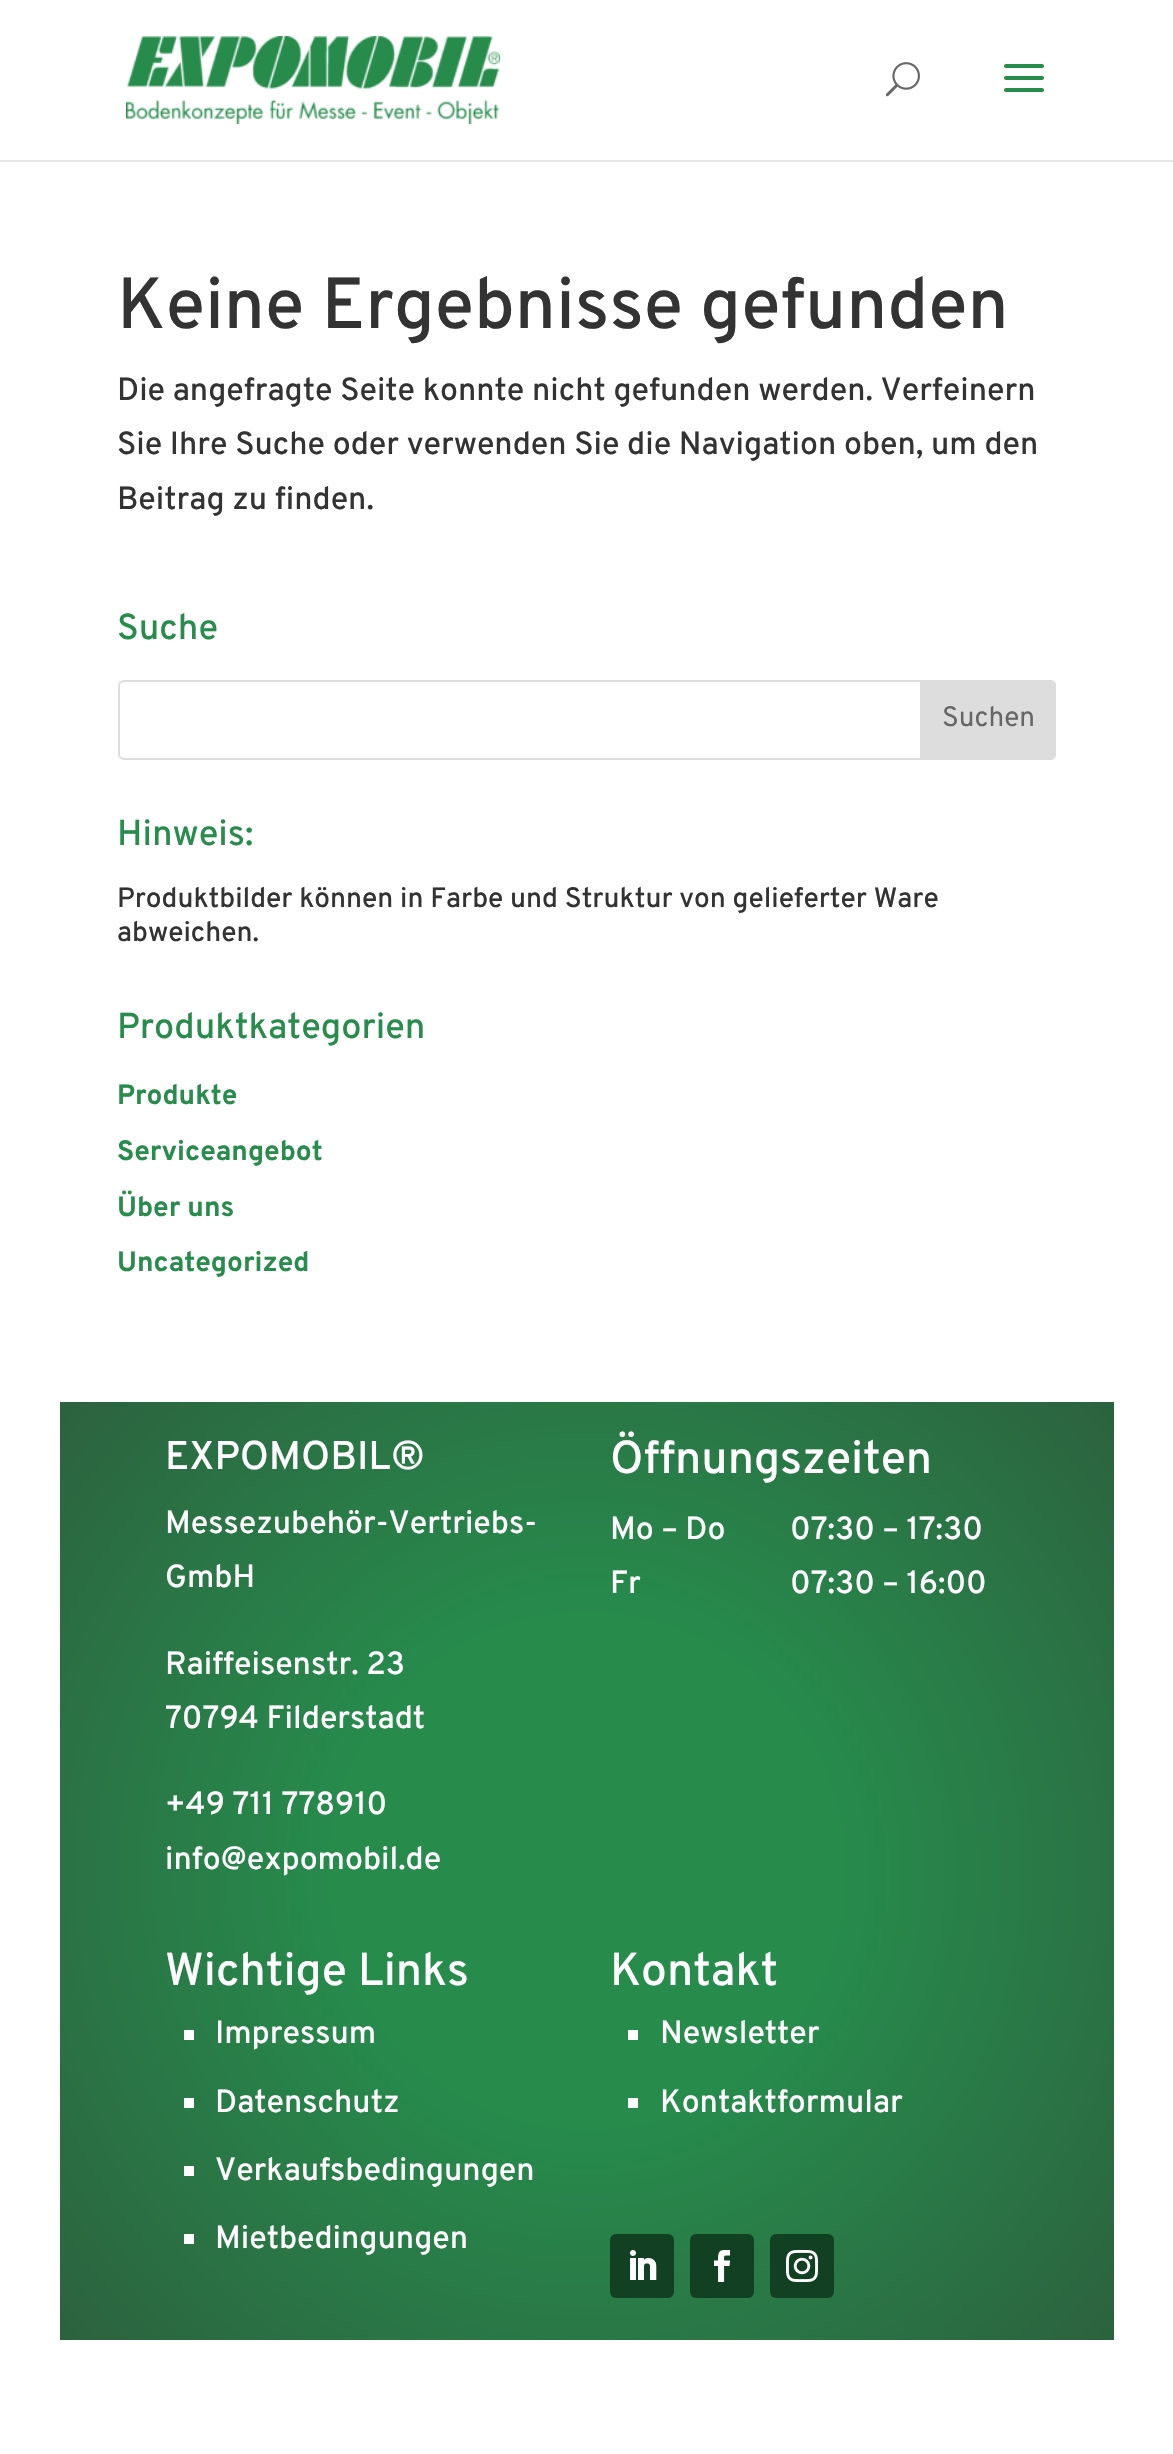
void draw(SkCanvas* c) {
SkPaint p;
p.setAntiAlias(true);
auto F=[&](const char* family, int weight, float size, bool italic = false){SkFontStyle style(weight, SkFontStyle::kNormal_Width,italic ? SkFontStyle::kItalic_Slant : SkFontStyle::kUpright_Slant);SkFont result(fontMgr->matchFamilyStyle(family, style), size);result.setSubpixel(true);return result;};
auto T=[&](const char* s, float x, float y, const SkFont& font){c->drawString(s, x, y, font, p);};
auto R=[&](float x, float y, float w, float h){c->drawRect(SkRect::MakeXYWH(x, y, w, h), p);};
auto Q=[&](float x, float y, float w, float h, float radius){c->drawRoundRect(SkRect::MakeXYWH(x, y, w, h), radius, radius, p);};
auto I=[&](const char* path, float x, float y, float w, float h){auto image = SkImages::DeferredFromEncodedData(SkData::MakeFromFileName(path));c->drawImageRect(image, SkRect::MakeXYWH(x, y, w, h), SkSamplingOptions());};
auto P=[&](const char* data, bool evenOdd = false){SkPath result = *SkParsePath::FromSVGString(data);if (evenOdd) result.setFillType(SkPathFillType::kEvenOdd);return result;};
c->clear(0xffffffff);
p.setColor(0xffe6e6e6);
R(0,160,1173,2);
I("1.png",126,36,374,88);
I("2.png",885,62,35,35);
I("3.png",1004,64,40,28);
auto f1 = F("Overpass",500,72);
p.setColor(0xff333333);
T("Keine Ergebnisse gefunden",117,328,f1);
auto f2 = F("Overpass",500,32);
T("Die angefragte Seite konnte nicht gefunden werden. Verfeinern",117,400,f2);
T("Sie Ihre Suche oder verwenden Sie die Navigation oben, um den",117,454,f2);
T("Beitrag zu finden.",117,509,f2);
auto f3 = F("Overpass",500,36);
p.setColor(0xff288c4c);
T("Suche",117,639,f3);
p.setStroke(true);
p.setStrokeWidth(2);
p.setColor(0xffdddddd);
c->drawRoundRect(SkRect::MakeXYWH(119,681,936,78),5,5,p);
p.setStroke(false);
c->drawPath(P("M921 681h129c3 0 5 2 5 5v68c0 3-2 5-5 5h-129z"),p);
p.setStroke(true);
c->drawPath(P("M921 681h129c3 0 5 2 5 5v68c0 3-2 5-5 5h-129z"),p);
auto f4 = F("Overpass",400,28);
p.setStroke(false);
p.setColor(0xff666666);
T("Suchen",942,726,f4);
p.setColor(0xff288c4c);
T("Hinweis:",117,845,f3);
auto f5 = F("Overpass",500,28);
p.setColor(0xff333333);
T("Produktbilder können in Farbe und Struktur von gelieferter Ware",117,907,f5);
T("abweichen.",117,941,f5);
p.setColor(0xff288c4c);
T("Produktkategorien",117,1038,f3);
auto f6 = F("Overpass",700,28);
T("Produkte",117,1104,f6);
T("Serviceangebot",117,1160,f6);
T("Über uns",117,1216,f6);
T("Uncategorized",117,1271,f6);
{
const SkColor colors[] = {0xff278b4c,0xff2c623f};
const float stops[] = {.36,1};
p.setShader(SkGradientShader::MakeRadial({587,1871}, 705, colors, stops, 2, SkTileMode::kClamp));
p.setAlpha(255);
}
R(60,1402,1054,938);
auto f7 = F("Overpass",500,40);
p.setShader(nullptr);
p.setColor(0xffffffff);
T("EXPOMOBIL®",165,1469,f7);
T("Messezubehör-Vertriebs-",165,1533,f2);
T("GmbH",165,1587,f2);
T("Raiffeisenstr. 23",165,1674,f2);
T("70794 Filderstadt",165,1728,f2);
T("+49 711 778910",165,1814,f2);
T("info@expomobil.de",165,1869,f2);
auto f8 = F("Overpass",500,46);
T("Öffnungszeiten",610,1473,f8);
T("Mo – Do",610,1539,f2);
T("07:30 – 17:30",790,1539,f2);
T("Fr",610,1593,f2);
T("07:30 – 16:00",790,1593,f2);
T("Wichtige Links",165,1985,f8);
R(184,2030,10,10);
T("Impressum",215,2043,f2);
R(184,2098,10,10);
T("Datenschutz",215,2112,f2);
R(184,2166,10,10);
T("Verkaufsbedingungen",215,2180,f2);
R(184,2234,10,10);
T("Mietbedingungen",215,2248,f2);
T("Kontakt",610,1985,f8);
R(628,2030,10,10);
T("Newsletter",660,2043,f2);
R(628,2098,10,10);
T("Kontaktformular",660,2112,f2);
p.setColor(0xff124023);
Q(610,2234,64,64,6);
I("4.png",630,2250,27,30);
Q(690,2234,64,64,6);
I("5.png",714,2250,17,32);
Q(770,2234,64,64,6);
I("6.png",786,2250,32,32);
}
